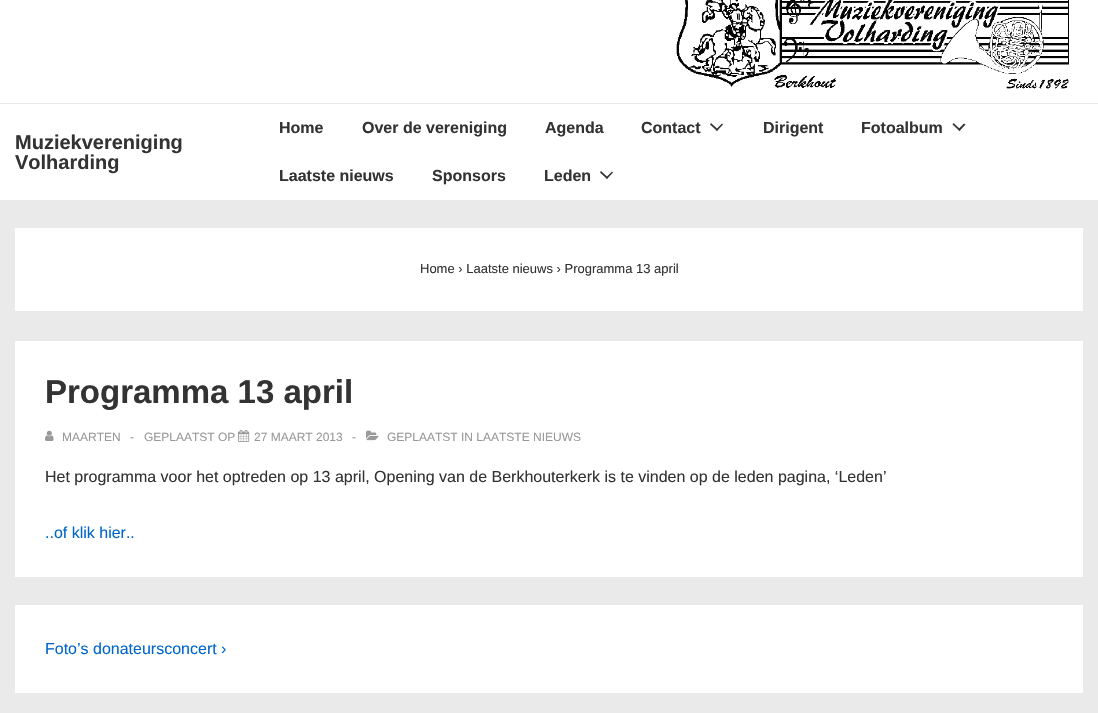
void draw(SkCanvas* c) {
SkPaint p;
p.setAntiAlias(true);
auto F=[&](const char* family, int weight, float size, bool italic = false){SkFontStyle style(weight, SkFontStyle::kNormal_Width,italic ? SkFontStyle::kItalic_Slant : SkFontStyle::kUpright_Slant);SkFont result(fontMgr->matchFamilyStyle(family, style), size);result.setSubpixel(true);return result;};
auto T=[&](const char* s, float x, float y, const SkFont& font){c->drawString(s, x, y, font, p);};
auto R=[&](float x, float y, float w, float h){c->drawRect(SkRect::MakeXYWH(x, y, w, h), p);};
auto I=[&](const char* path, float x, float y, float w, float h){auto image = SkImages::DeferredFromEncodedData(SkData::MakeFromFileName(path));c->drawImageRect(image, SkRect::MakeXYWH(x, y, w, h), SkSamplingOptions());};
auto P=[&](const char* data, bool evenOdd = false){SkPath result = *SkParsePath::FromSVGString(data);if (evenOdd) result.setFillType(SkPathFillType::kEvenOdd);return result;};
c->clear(0xffeaeaea);
p.setColor(0xffffffff);
R(0,0,1098,103);
I("1.png",676,0,393,89);
R(0,104,1098,96);
auto f1 = F("Liberation Sans",700,20);
p.setColor(0xff333333);
T("Muziekvereniging",15,149,f1);
T("Volharding",15,169,f1);
auto f2 = F("Liberation Sans",700,16);
T("Home",279,133,f2);
T("Over de vereniging",362,133,f2);
T("Agenda",545,133,f2);
T("Contact",641,133,f2);
c->drawPath(P("M710 124.5l1-1.5l7 6.5l-1 1.5z"),p);
c->drawPath(P("M716 129.5l6-6l1 1l-6 6.5z"),p);
T("Dirigent",763,133,f2);
T("Fotoalbum",861,133,f2);
c->drawPath(P("M952.5 124.5l1-1.5l7 6.5l-1 1.5z"),p);
c->drawPath(P("M958 129.5l6-6l1.5 1l-6 6.5z"),p);
T("Laatste nieuws",279,181,f2);
T("Sponsors",432,181,f2);
T("Leden",544,181,f2);
c->drawPath(P("M600 172.5l1-1.5l7 6.5l-1 1.5z"),p);
c->drawPath(P("M606 177.5l6-6l1 1l-6 6.5z"),p);
p.setColor(0xffffffff);
R(15,228,1068,83);
auto f3 = F("Liberation Sans",400,13);
p.setColor(0xff333333);
T("Home › Laatste nieuws › Programma 13 april",420,273,f3);
p.setColor(0xffffffff);
R(15,341,1068,236);
auto f4 = F("Liberation Sans",700,33);
p.setColor(0xff333333);
T("Programma 13 april",45,403,f4);
I("2.png",45,430,9,11);
auto f5 = F("Liberation Sans",400,12);
p.setColor(0xff999999);
T("MAARTEN",62,441,f5);
T("-",130,441,f5);
T("GEPLAATST OP",144,441,f5);
I("3.png",238,429,12,13);
T("27 MAART 2013",254,441,f5);
T("-",352,441,f5);
I("4.png",366,430,13,11);
T("GEPLAATST IN LAATSTE NIEUWS",387,441,f5);
auto f6 = F("Liberation Sans",400,16);
p.setColor(0xff333333);
T("Het programma voor het optreden op 13 april, Opening van de Berkhouterkerk is te vinden op de leden pagina, ‘Leden’",45,482,f6);
p.setColor(0xff0066cc);
T("..of klik hier..",45,538,f6);
p.setColor(0xffffffff);
R(15,605,1068,88);
p.setColor(0xff0066cc);
T("Foto’s donateursconcert ›",45,654,f6);
}
